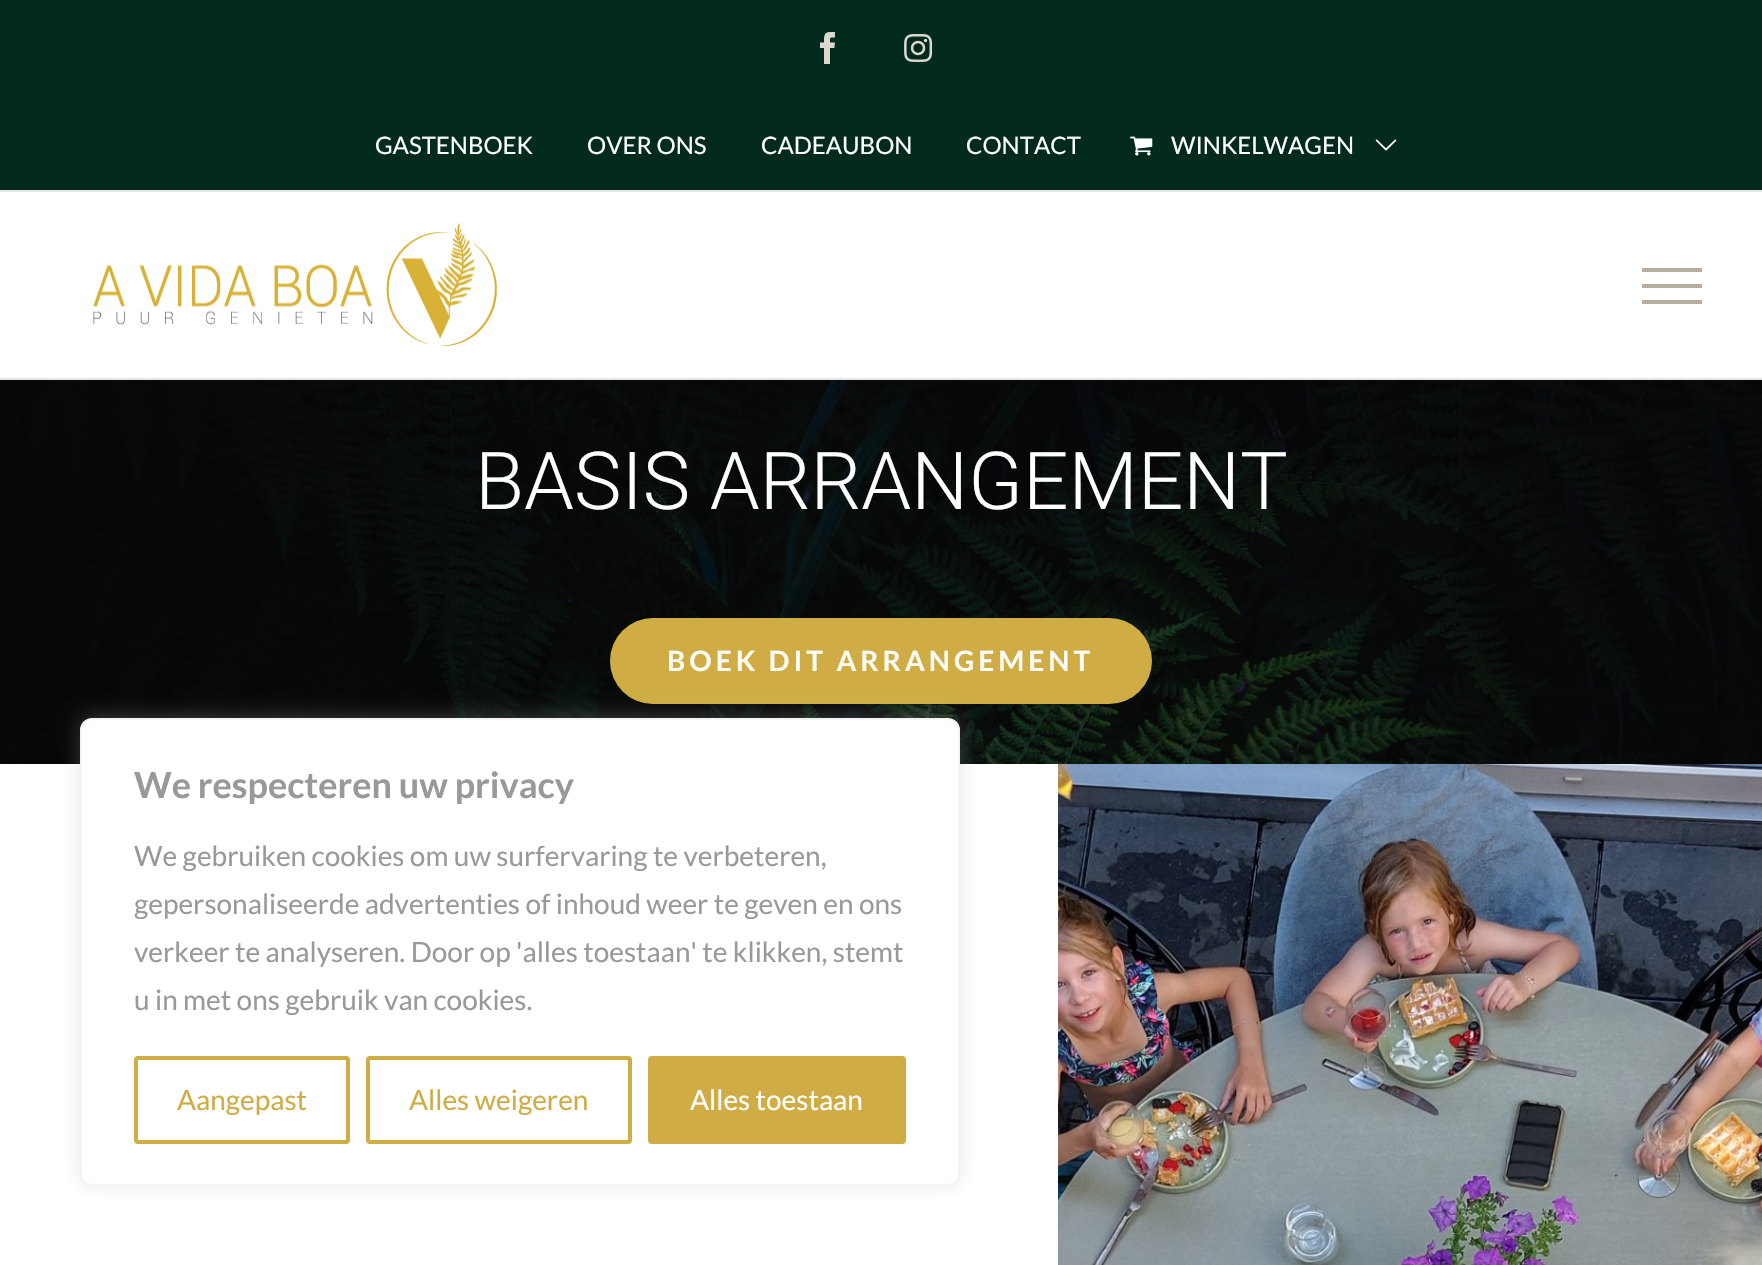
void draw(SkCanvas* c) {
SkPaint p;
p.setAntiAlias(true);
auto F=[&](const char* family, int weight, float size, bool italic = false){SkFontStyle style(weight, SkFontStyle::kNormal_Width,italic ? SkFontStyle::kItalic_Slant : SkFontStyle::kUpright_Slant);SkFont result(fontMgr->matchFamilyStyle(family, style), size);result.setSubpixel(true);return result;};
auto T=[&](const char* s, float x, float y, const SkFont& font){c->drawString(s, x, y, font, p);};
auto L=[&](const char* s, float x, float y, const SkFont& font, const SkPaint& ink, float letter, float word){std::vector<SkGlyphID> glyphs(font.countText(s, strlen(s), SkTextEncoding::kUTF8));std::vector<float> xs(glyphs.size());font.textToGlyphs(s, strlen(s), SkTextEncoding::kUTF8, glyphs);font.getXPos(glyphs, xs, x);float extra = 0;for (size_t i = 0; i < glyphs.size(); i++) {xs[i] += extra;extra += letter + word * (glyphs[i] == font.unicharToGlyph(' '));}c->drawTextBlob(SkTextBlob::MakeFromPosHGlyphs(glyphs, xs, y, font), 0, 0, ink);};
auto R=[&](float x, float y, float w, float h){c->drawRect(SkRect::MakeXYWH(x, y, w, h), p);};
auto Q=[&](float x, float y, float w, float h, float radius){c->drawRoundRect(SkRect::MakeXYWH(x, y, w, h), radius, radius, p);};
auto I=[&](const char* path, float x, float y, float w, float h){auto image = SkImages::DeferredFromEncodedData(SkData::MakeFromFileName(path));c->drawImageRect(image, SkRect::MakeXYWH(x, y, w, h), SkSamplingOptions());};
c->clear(0xffffffff);
p.setColor(0xff022b1d);
R(0,0,1762,190);
p.setColor(0xffe5e5e5);
R(0,190,1762,2);
I("1.png",820,32,15,32);
I("2.png",904,34,29,28);
auto f1 = F("Lato",400,24);
p.setColor(0xffffffff);
T("GASTENBOEK",375,154,f1);
T("OVER ONS",587,154,f1);
T("CADEAUBON",761,154,f1);
T("CONTACT",966,154,f1);
I("3.png",1130,136,23,20);
T("WINKELWAGEN",1171,154,f1);
I("4.png",1375,139,22,12);
p.setColor(0xffe5e5e5);
R(0,378,1762,2);
I("5.png",93,223,404,123);
p.setColor(0xffb9afa1);
R(1642,268,60,4);
R(1642,284,60,4);
R(1642,300,60,4);
I("6.png",0,380,1762,384);
auto f2 = F("Roboto",300,80);
p.setColor(0xffffffff);
T("BASIS ARRANGEMENT",475,509,f2);
p.setColor(0xffcfad44);
Q(610,618,542,86,43);
auto f3 = F("Lato",700,28);
p.setColor(0xfffdfbf6);
L("BOEK DIT ARRANGEMENT",667,671,f3,p,4,0);
I("7.png",1058,764,704,501);
p.setColor(0x4dacabab);
p.setMaskFilter(SkMaskFilter::MakeBlur(kNormal_SkBlurStyle, 10));
c->drawRoundRect(SkRect::MakeXYWH(80,716,880,468),12,12,p);
p.setMaskFilter(nullptr);
p.setColor(0xffffffff);
c->drawRoundRect(SkRect::MakeXYWH(81,719,878,466),11,11,p);
p.setStroke(true);
p.setStrokeWidth(2);
p.setColor(0xfff4f4f4);
c->drawRoundRect(SkRect::MakeXYWH(81,719,878,466),11,11,p);
auto f4 = F("Lato",700,36);
p.setStroke(false);
p.setColor(0xff999999);
T("We respecteren uw privacy",134,798,f4);
auto f5 = F("Lato",400,28);
T("We gebruiken cookies om uw surfervaring te verbeteren,",134,866,f5);
T("gepersonaliseerde advertenties of inhoud weer te geven en ons",134,914,f5);
T("verkeer te analyseren. Door op 'alles toestaan' te klikken, stemt",134,962,f5);
T("u in met ons gebruik van cookies.",134,1010,f5);
p.setStroke(true);
p.setStrokeWidth(4);
p.setColor(0xffcfad44);
c->drawRoundRect(SkRect::MakeXYWH(136,1058,212,84),2,2,p);
p.setStroke(false);
T("Aangepast",177,1110,f5);
p.setStroke(true);
c->drawRoundRect(SkRect::MakeXYWH(368,1058,262,84),2,2,p);
p.setStroke(false);
T("Alles weigeren",409,1110,f5);
c->drawRoundRect(SkRect::MakeXYWH(650,1058,254,84),2,2,p);
p.setStroke(true);
c->drawRoundRect(SkRect::MakeXYWH(650,1058,254,84),2,2,p);
p.setStroke(false);
p.setColor(0xffffffff);
T("Alles toestaan",690,1110,f5);
}
